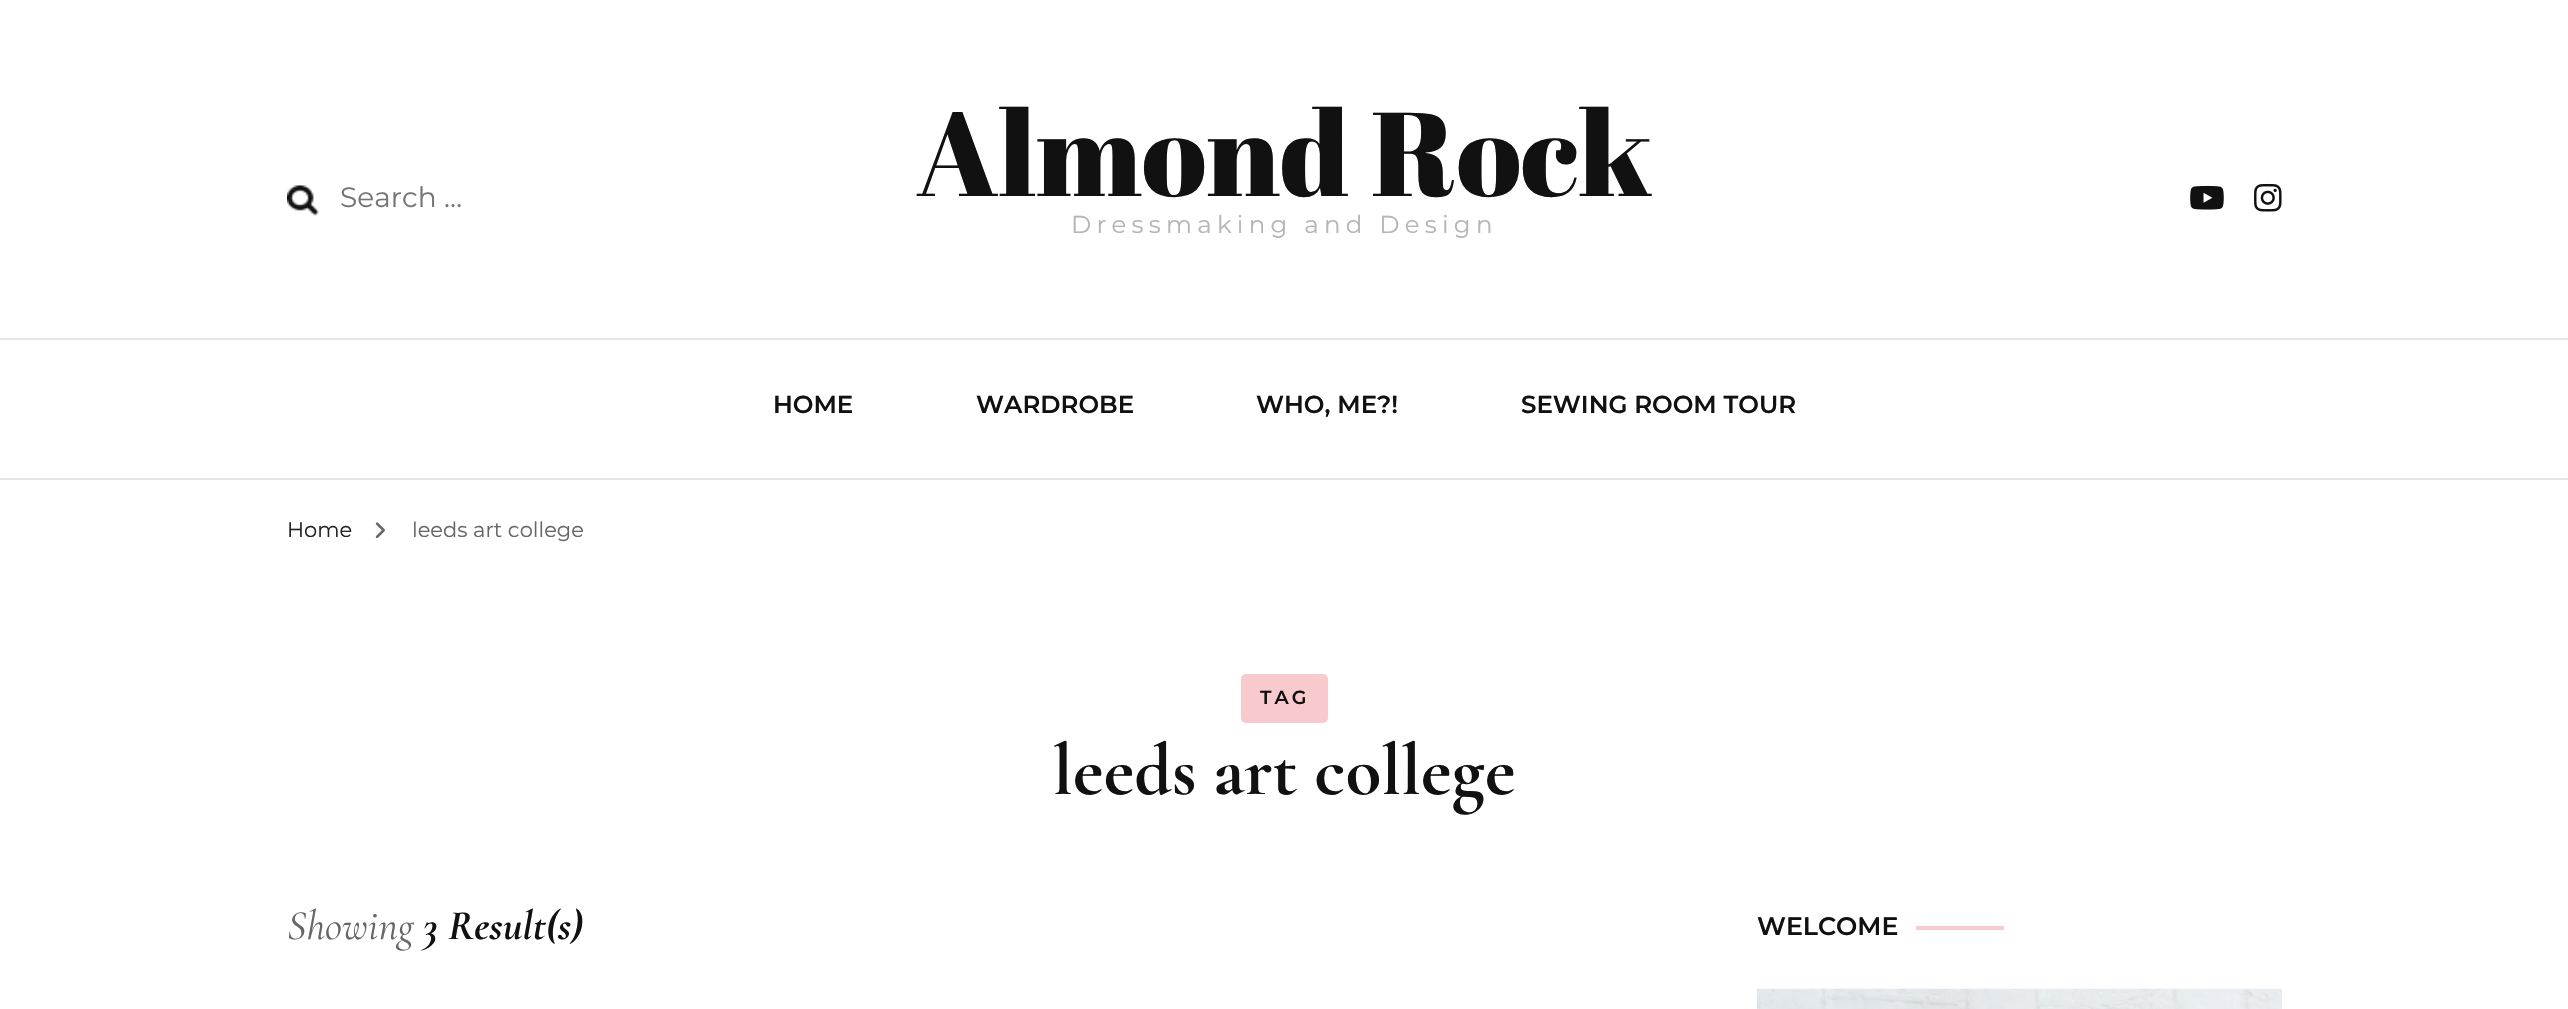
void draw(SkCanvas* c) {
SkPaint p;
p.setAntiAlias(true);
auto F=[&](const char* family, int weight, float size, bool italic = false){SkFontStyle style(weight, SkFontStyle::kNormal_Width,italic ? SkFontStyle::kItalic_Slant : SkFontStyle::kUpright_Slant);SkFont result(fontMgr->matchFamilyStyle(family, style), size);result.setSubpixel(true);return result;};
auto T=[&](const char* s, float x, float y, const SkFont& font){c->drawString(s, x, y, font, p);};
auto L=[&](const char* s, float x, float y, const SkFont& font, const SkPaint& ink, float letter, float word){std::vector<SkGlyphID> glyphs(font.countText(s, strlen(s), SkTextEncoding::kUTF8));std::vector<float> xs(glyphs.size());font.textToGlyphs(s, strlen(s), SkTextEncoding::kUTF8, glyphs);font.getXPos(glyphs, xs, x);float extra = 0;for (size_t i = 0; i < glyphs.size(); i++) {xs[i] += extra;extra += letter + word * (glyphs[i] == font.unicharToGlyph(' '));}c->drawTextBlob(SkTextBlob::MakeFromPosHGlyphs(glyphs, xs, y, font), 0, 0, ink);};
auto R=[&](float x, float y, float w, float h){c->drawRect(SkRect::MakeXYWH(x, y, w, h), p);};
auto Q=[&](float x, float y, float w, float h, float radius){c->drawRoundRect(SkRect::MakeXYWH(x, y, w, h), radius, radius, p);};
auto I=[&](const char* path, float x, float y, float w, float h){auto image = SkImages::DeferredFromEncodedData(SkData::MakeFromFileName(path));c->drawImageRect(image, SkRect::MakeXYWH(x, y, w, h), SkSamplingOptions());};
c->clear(0xffffffff);
I("1.png",287,185,32,31);
auto f1 = F("Montserrat",400,28);
p.setColor(0xff757575);
T("Search …",340,207,f1);
auto f2 = F("Abril Fatface",400,119);
p.setColor(0xff111111);
T("Almond Rock",916,196,f2);
auto f3 = F("Montserrat",400,24.5);
p.setColor(0xffb5b5b5);
L("Dressmaking and Design",1071,233,f3,p,5.25,0);
I("2.png",2190,185,34,25);
I("3.png",2254,183,28,29);
p.setColor(0xffe5e5e5);
R(0,338,2568,2);
R(0,478,2568,2);
auto f4 = F("Montserrat",600,24.5);
p.setColor(0xff111111);
T("HOME",773,413,f4);
T("WARDROBE",976,413,f4);
T("WHO, ME?!",1256,413,f4);
T("SEWING ROOM TOUR",1521,413,f4);
auto f5 = F("Montserrat",400,21);
p.setColor(0xff222222);
T("Home",287,537,f5);
I("4.png",375,522,10,17);
p.setColor(0xff666666);
T("leeds art college",412,537,f5);
p.setColor(0xfff9cacd);
Q(1241,674,87,49,5);
auto f6 = F("Montserrat",600,19);
p.setColor(0xff111111);
L("TAG",1260,704,f6,p,3,0);
auto f7 = F("Cormorant Garamond",700,73.5);
T("leeds art college",1053,794,f7);
auto f8 = F("Cormorant Garamond",400,42,true);
p.setColor(0xff666666);
T("Showing",287,939,f8);
auto f9 = F("Cormorant Garamond",700,42,true);
p.setColor(0xff111111);
T("3 Result(s)",423,939,f9);
auto f10 = F("Montserrat",600,25.25);
T("WELCOME",1757,935,f10);
p.setColor(0xfff9cacd);
R(1916,926,88,4);
I("5.png",1757,988,525,21);
}
